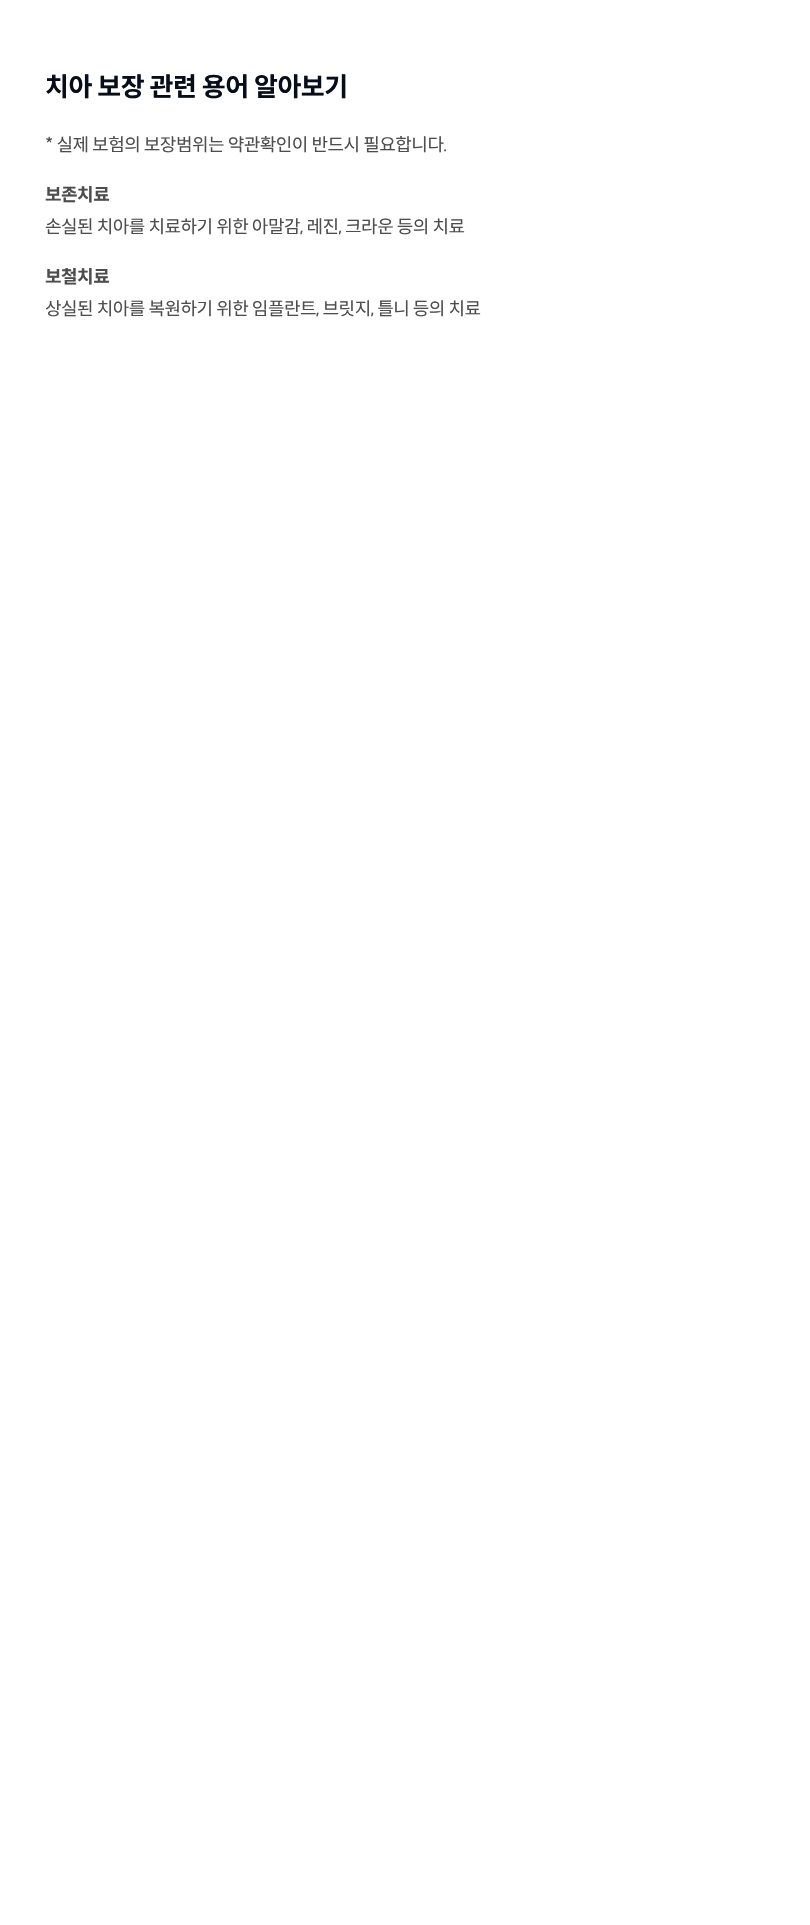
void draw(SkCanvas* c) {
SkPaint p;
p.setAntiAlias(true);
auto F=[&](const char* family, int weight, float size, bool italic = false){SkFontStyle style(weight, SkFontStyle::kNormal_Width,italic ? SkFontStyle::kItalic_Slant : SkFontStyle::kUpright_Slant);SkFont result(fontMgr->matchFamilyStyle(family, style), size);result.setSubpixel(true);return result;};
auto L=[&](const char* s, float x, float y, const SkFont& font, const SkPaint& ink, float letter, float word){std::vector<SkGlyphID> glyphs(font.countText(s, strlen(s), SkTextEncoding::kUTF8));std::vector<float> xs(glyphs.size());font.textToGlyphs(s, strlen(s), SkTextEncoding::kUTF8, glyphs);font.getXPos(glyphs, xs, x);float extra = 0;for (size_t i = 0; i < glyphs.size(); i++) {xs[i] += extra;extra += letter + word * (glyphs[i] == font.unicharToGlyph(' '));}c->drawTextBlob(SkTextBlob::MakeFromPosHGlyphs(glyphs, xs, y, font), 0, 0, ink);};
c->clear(0xffffffff);
auto f1 = F("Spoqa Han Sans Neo",700,26);
p.setColor(0xff070e1a);
L("치아 보장 관련 용어 알아보기",45,96,f1,p,-.5,0);
auto f2 = F("Spoqa Han Sans Neo",400,18);
p.setColor(0xff4d4d4d);
L("* 실제 보험의 보장범위는 약관확인이 반드시 필요합니다.",45,151,f2,p,-.5,0);
auto f3 = F("Spoqa Han Sans Neo",700,18);
L("보존치료",45,201,f3,p,-.5,0);
L("손실된 치아를 치료하기 위한 아말감, 레진, 크라운 등의 치료",45,233,f2,p,-.5,0);
L("보철치료",45,283,f3,p,-.5,0);
L("상실된 치아를 복원하기 위한 임플란트, 브릿지, 틀니 등의 치료",45,315,f2,p,-.5,0);
}
